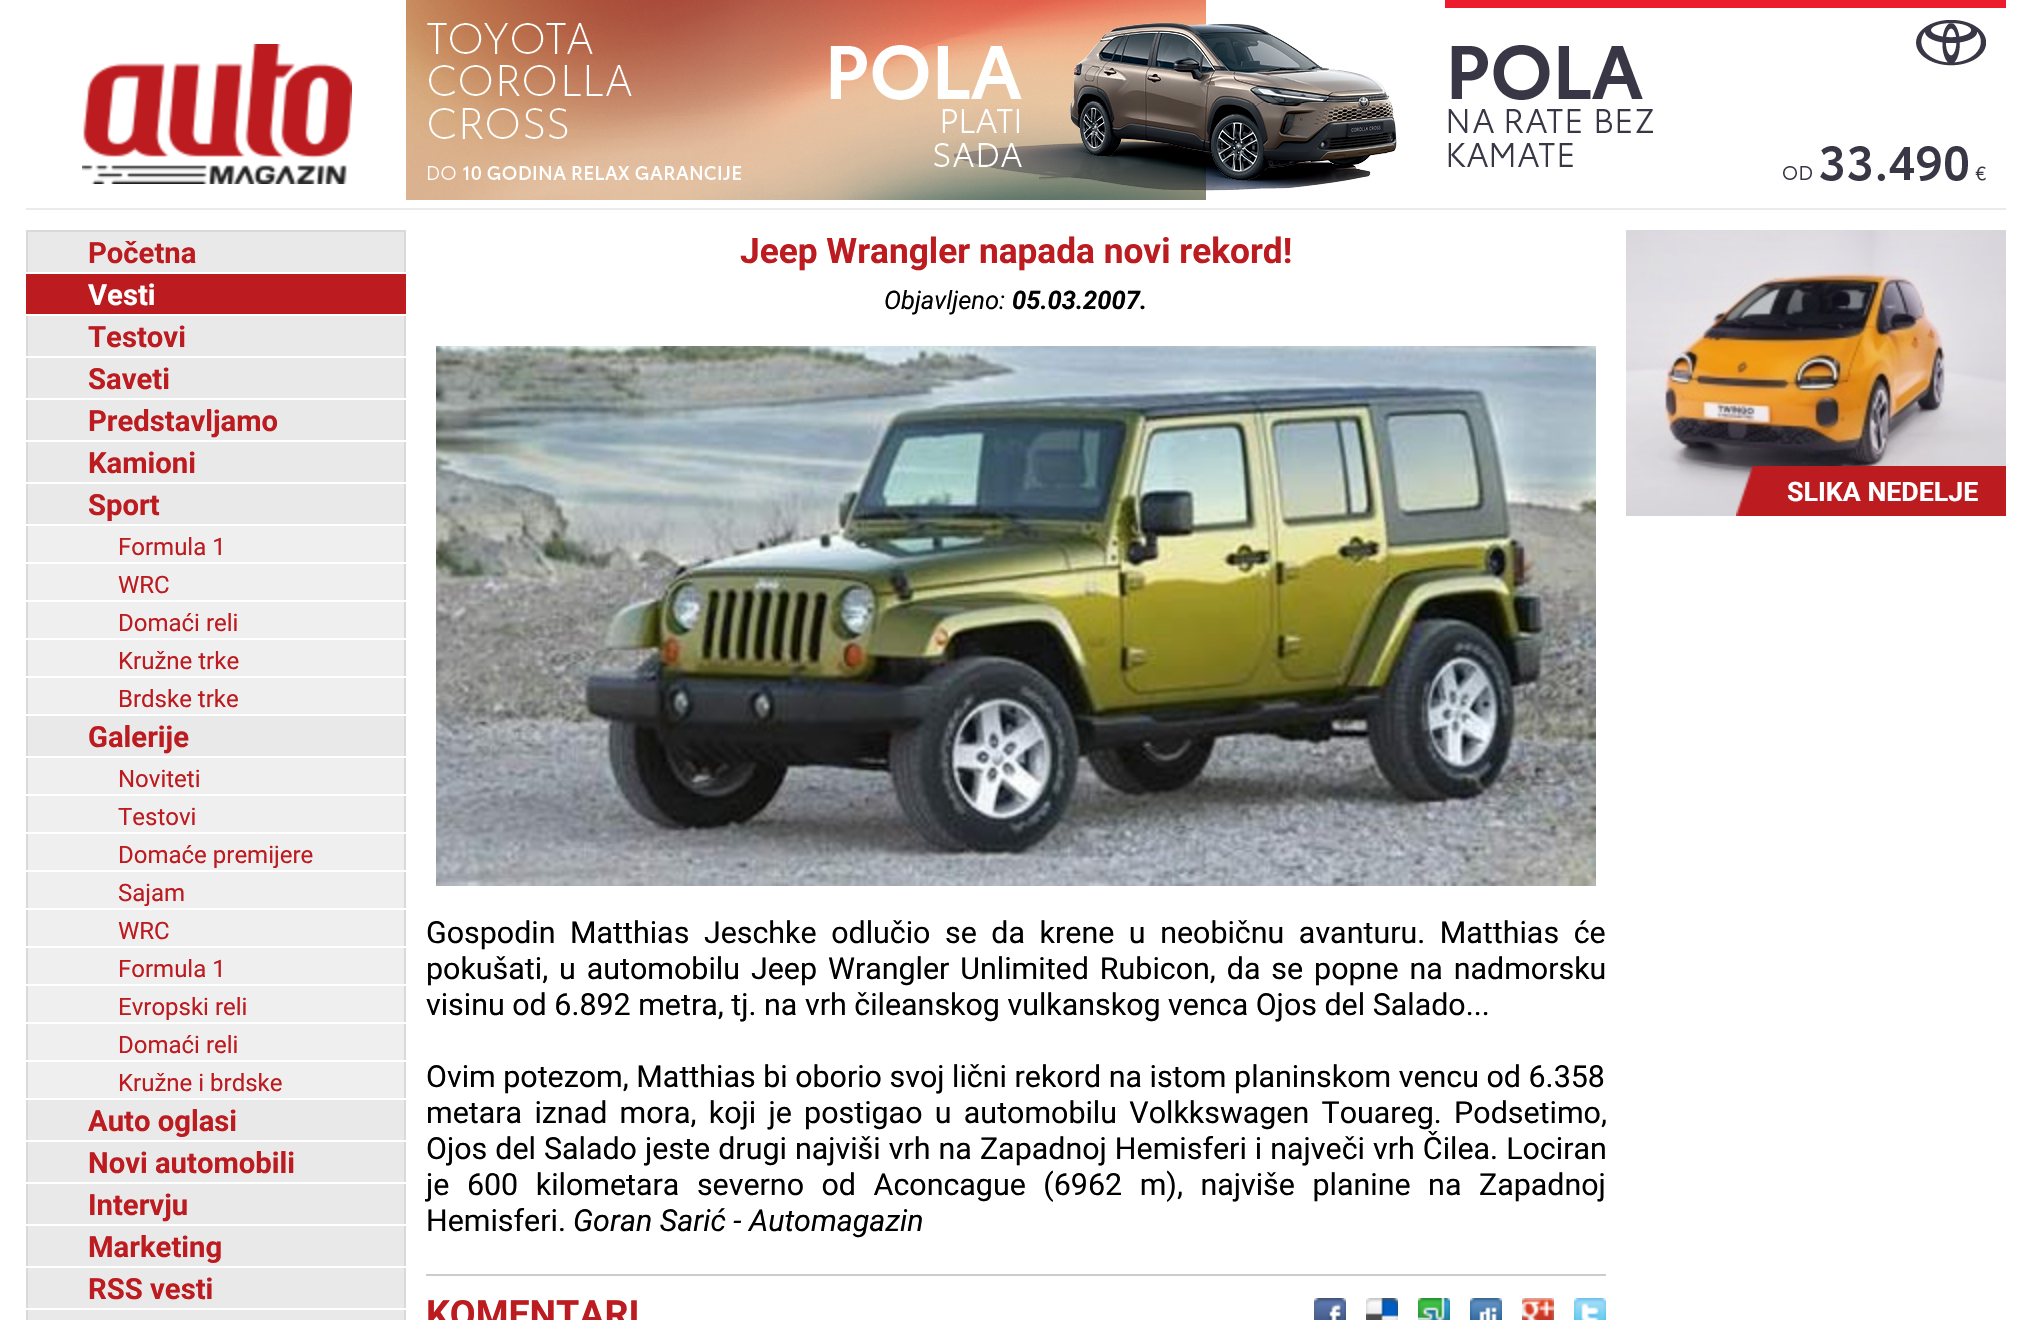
void draw(SkCanvas* c) {
SkPaint p;
p.setAntiAlias(true);
auto F=[&](const char* family, int weight, float size, bool italic = false){SkFontStyle style(weight, SkFontStyle::kNormal_Width,italic ? SkFontStyle::kItalic_Slant : SkFontStyle::kUpright_Slant);SkFont result(fontMgr->matchFamilyStyle(family, style), size);result.setSubpixel(true);return result;};
auto T=[&](const char* s, float x, float y, const SkFont& font){c->drawString(s, x, y, font, p);};
auto L=[&](const char* s, float x, float y, const SkFont& font, const SkPaint& ink, float letter, float word){std::vector<SkGlyphID> glyphs(font.countText(s, strlen(s), SkTextEncoding::kUTF8));std::vector<float> xs(glyphs.size());font.textToGlyphs(s, strlen(s), SkTextEncoding::kUTF8, glyphs);font.getXPos(glyphs, xs, x);float extra = 0;for (size_t i = 0; i < glyphs.size(); i++) {xs[i] += extra;extra += letter + word * (glyphs[i] == font.unicharToGlyph(' '));}c->drawTextBlob(SkTextBlob::MakeFromPosHGlyphs(glyphs, xs, y, font), 0, 0, ink);};
auto R=[&](float x, float y, float w, float h){c->drawRect(SkRect::MakeXYWH(x, y, w, h), p);};
auto I=[&](const char* path, float x, float y, float w, float h){auto image = SkImages::DeferredFromEncodedData(SkData::MakeFromFileName(path));c->drawImageRect(image, SkRect::MakeXYWH(x, y, w, h), SkSamplingOptions());};
c->clear(0xffffffff);
p.setColor(0xffebebeb);
R(26,208,1980,2);
I("1.png",82,44,270,140);
I("2.png",406,0,1600,200);
p.setColor(0xffe9e9e9);
R(28,232,376,1088);
p.setColor(0xffd9d9d9);
R(26,230,380,2);
R(404,232,2,40);
R(26,232,2,40);
auto f1 = F("Roboto",700,29.25);
p.setColor(0xffbc1b20);
T("Početna",88,263,f1);
p.setColor(0xffffffff);
R(26,272,380,2);
p.setColor(0xffbc1b20);
R(26,274,380,40);
p.setColor(0xffffffff);
T("Vesti",88,305,f1);
R(26,314,380,2);
p.setColor(0xffd9d9d9);
R(404,316,2,40);
R(26,316,2,40);
p.setColor(0xffbc1b20);
T("Testovi",88,347,f1);
p.setColor(0xffffffff);
R(26,356,380,2);
p.setColor(0xffd9d9d9);
R(404,358,2,40);
R(26,358,2,40);
p.setColor(0xffbc1b20);
T("Saveti",88,389,f1);
p.setColor(0xffffffff);
R(26,398,380,2);
p.setColor(0xffd9d9d9);
R(404,400,2,40);
R(26,400,2,40);
p.setColor(0xffbc1b20);
T("Predstavljamo",88,431,f1);
p.setColor(0xffffffff);
R(26,440,380,2);
p.setColor(0xffd9d9d9);
R(404,442,2,40);
R(26,442,2,40);
p.setColor(0xffbc1b20);
T("Kamioni",88,473,f1);
p.setColor(0xffffffff);
R(26,482,380,2);
p.setColor(0xffd9d9d9);
R(404,484,2,40);
R(26,484,2,40);
p.setColor(0xffbc1b20);
T("Sport",88,515,f1);
p.setColor(0xffffffff);
R(26,524,380,2);
p.setColor(0xffefefef);
R(28,526,376,36);
p.setColor(0xffd9d9d9);
R(404,526,2,36);
R(26,526,2,36);
auto f2 = F("Roboto",400,24);
p.setColor(0xffbc1b20);
T("Formula 1",118,555,f2);
p.setColor(0xffffffff);
R(26,562,380,2);
p.setColor(0xffefefef);
R(28,564,376,36);
p.setColor(0xffd9d9d9);
R(404,564,2,36);
R(26,564,2,36);
p.setColor(0xffbc1b20);
T("WRC",118,593,f2);
p.setColor(0xffffffff);
R(26,600,380,2);
p.setColor(0xffefefef);
R(28,602,376,36);
p.setColor(0xffd9d9d9);
R(404,602,2,36);
R(26,602,2,36);
p.setColor(0xffbc1b20);
T("Domaći reli",118,631,f2);
p.setColor(0xffffffff);
R(26,638,380,2);
p.setColor(0xffefefef);
R(28,640,376,36);
p.setColor(0xffd9d9d9);
R(404,640,2,36);
R(26,640,2,36);
p.setColor(0xffbc1b20);
T("Kružne trke",118,669,f2);
p.setColor(0xffffffff);
R(26,676,380,2);
p.setColor(0xffefefef);
R(28,678,376,36);
p.setColor(0xffd9d9d9);
R(404,678,2,36);
R(26,678,2,36);
p.setColor(0xffbc1b20);
T("Brdske trke",118,707,f2);
p.setColor(0xffffffff);
R(26,714,380,2);
p.setColor(0xffd9d9d9);
R(404,716,2,40);
R(26,716,2,40);
p.setColor(0xffbc1b20);
T("Galerije",88,747,f1);
p.setColor(0xffffffff);
R(26,756,380,2);
p.setColor(0xffefefef);
R(28,758,376,36);
p.setColor(0xffd9d9d9);
R(404,758,2,36);
R(26,758,2,36);
p.setColor(0xffbc1b20);
T("Noviteti",118,787,f2);
p.setColor(0xffffffff);
R(26,794,380,2);
p.setColor(0xffefefef);
R(28,796,376,36);
p.setColor(0xffd9d9d9);
R(404,796,2,36);
R(26,796,2,36);
p.setColor(0xffbc1b20);
T("Testovi",118,825,f2);
p.setColor(0xffffffff);
R(26,832,380,2);
p.setColor(0xffefefef);
R(28,834,376,36);
p.setColor(0xffd9d9d9);
R(404,834,2,36);
R(26,834,2,36);
p.setColor(0xffbc1b20);
T("Domaće premijere",118,863,f2);
p.setColor(0xffffffff);
R(26,870,380,2);
p.setColor(0xffefefef);
R(28,872,376,36);
p.setColor(0xffd9d9d9);
R(404,872,2,36);
R(26,872,2,36);
p.setColor(0xffbc1b20);
T("Sajam",118,901,f2);
p.setColor(0xffffffff);
R(26,908,380,2);
p.setColor(0xffefefef);
R(28,910,376,36);
p.setColor(0xffd9d9d9);
R(404,910,2,36);
R(26,910,2,36);
p.setColor(0xffbc1b20);
T("WRC",118,939,f2);
p.setColor(0xffffffff);
R(26,946,380,2);
p.setColor(0xffefefef);
R(28,948,376,36);
p.setColor(0xffd9d9d9);
R(404,948,2,36);
R(26,948,2,36);
p.setColor(0xffbc1b20);
T("Formula 1",118,977,f2);
p.setColor(0xffffffff);
R(26,984,380,2);
p.setColor(0xffefefef);
R(28,986,376,36);
p.setColor(0xffd9d9d9);
R(404,986,2,36);
R(26,986,2,36);
p.setColor(0xffbc1b20);
T("Evropski reli",118,1015,f2);
p.setColor(0xffffffff);
R(26,1022,380,2);
p.setColor(0xffefefef);
R(28,1024,376,36);
p.setColor(0xffd9d9d9);
R(404,1024,2,36);
R(26,1024,2,36);
p.setColor(0xffbc1b20);
T("Domaći reli",118,1053,f2);
p.setColor(0xffffffff);
R(26,1060,380,2);
p.setColor(0xffefefef);
R(28,1062,376,36);
p.setColor(0xffd9d9d9);
R(404,1062,2,36);
R(26,1062,2,36);
p.setColor(0xffbc1b20);
T("Kružne i brdske",118,1091,f2);
p.setColor(0xffffffff);
R(26,1098,380,2);
p.setColor(0xffd9d9d9);
R(404,1100,2,40);
R(26,1100,2,40);
p.setColor(0xffbc1b20);
T("Auto oglasi",88,1131,f1);
p.setColor(0xffffffff);
R(26,1140,380,2);
p.setColor(0xffd9d9d9);
R(404,1142,2,40);
R(26,1142,2,40);
p.setColor(0xffbc1b20);
T("Novi automobili",88,1173,f1);
p.setColor(0xffffffff);
R(26,1182,380,2);
p.setColor(0xffd9d9d9);
R(404,1184,2,40);
R(26,1184,2,40);
p.setColor(0xffbc1b20);
T("Intervju",88,1215,f1);
p.setColor(0xffffffff);
R(26,1224,380,2);
p.setColor(0xffd9d9d9);
R(404,1226,2,40);
R(26,1226,2,40);
p.setColor(0xffbc1b20);
T("Marketing",88,1257,f1);
p.setColor(0xffffffff);
R(26,1266,380,2);
p.setColor(0xffd9d9d9);
R(404,1268,2,40);
R(26,1268,2,40);
p.setColor(0xffbc1b20);
T("RSS vesti",88,1299,f1);
p.setColor(0xffffffff);
R(26,1308,380,2);
p.setColor(0xffd9d9d9);
R(404,1310,2,10);
R(26,1310,2,10);
auto f3 = F("Roboto",700,35.25);
p.setColor(0xffbc1b20);
T("Jeep Wrangler napada novi rekord!",740,263,f3);
auto f4 = F("Roboto",400,25.5,true);
p.setColor(0xff000000);
T("Objavljeno:",884,309,f4);
auto f5 = F("Roboto",700,25.5,true);
T("05.03.2007.",1012,309,f5);
I("3.png",436,346,1160,540);
auto f6 = F("Roboto",400,30.4);
L("Gospodin Matthias Jeschke odlučio se da krene u neobičnu avanturu. Matthias će",426,943,f6,p,0,7);
L("pokušati, u automobilu Jeep Wrangler Unlimited Rubicon, da se popne na nadmorsku",426,979,f6,p,0,3.4);
T("visinu od 6.892 metra, tj. na vrh čileanskog vulkanskog venca Ojos del Salado...",426,1015,f6);
T("Ovim potezom, Matthias bi oborio svoj lični rekord na istom planinskom vencu od 6.358",426,1087,f6);
L("metara iznad mora, koji je postigao u automobilu Volkkswagen Touareg. Podsetimo,",426,1123,f6,p,0,4.75);
L("Ojos del Salado jeste drugi najviši vrh na Zapadnoj Hemisferi i največi vrh Čilea. Lociran",426,1159,f6,p,0,.5);
L("je 600 kilometara severno od Aconcague (6962 m), najviše planine na Zapadnoj",426,1195,f6,p,0,10);
T("Hemisferi.",426,1231,f6);
auto f7 = F("Roboto",400,30.4,true);
T("Goran Sarić - Automagazin",573,1231,f7);
p.setColor(0xffcccccc);
R(426,1274,1180,2);
auto f8 = F("Roboto",700,37.5);
p.setColor(0xffbc1b20);
T("KOMENTARI",426,1327,f8);
I("4.png",1314,1298,32,22);
I("5.png",1366,1298,32,22);
I("6.png",1418,1298,32,22);
I("7.png",1470,1298,32,22);
I("8.png",1522,1298,32,22);
I("9.png",1574,1298,32,22);
I("10.png",1626,230,380,286);
I("11.png",1736,466,270,50);
auto f9 = F("Roboto",700,26.75);
p.setColor(0xffffffff);
T("SLIKA NEDELJE",1787,501,f9);
}
